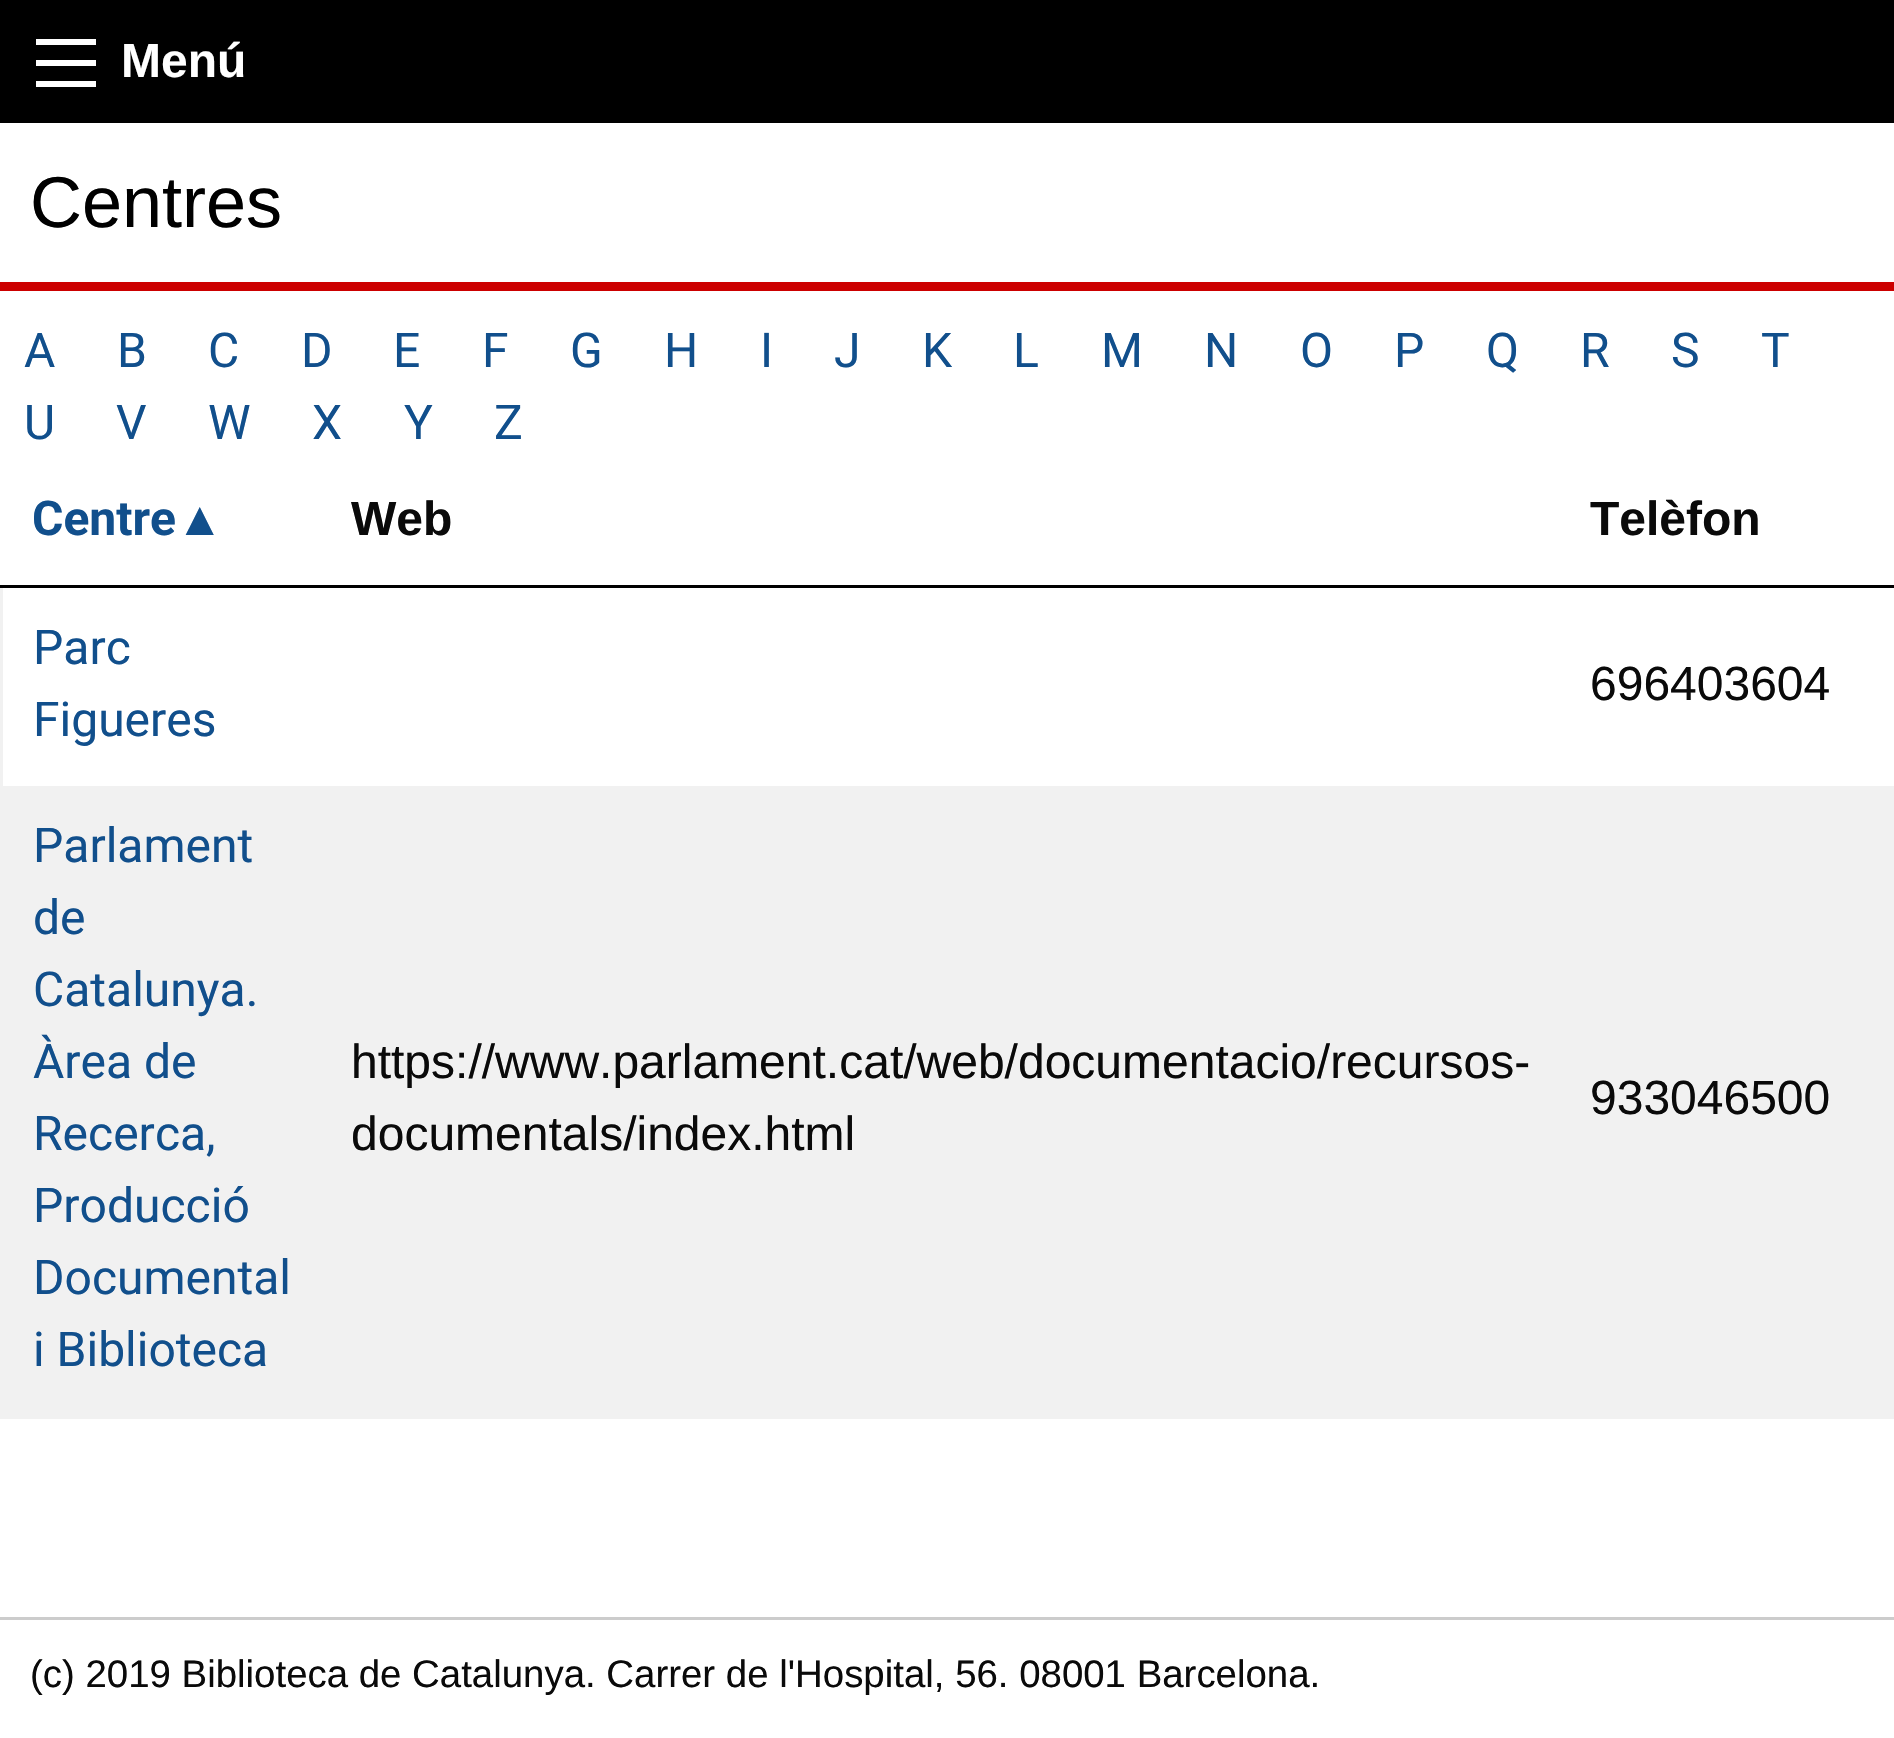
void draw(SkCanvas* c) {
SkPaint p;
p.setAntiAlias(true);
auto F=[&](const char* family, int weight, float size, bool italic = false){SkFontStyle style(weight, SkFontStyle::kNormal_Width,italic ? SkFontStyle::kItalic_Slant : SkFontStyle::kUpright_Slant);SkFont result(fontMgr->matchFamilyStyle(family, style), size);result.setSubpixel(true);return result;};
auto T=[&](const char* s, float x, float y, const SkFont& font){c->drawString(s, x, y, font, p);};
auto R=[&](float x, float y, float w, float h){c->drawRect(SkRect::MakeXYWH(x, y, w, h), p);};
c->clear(0xffffffff);
p.setColor(0xff000000);
R(0,0,1894,123);
p.setColor(0xfffefefe);
R(36,81,60,6);
R(36,60,60,6);
R(36,39,60,6);
auto f1 = F("Liberation Sans",700,48);
p.setColor(0xffffffff);
T("Menú",121,77,f1);
p.setColor(0xffcc0000);
R(0,282,1894,9);
auto f2 = F("Liberation Sans",400,72);
p.setColor(0xff000000);
T("Centres",30,227,f2);
auto f3 = F("Roboto",400,48);
p.setColor(0xff114f8c);
T("A",24,367,f3);
T("B",117,367,f3);
T("C",208,367,f3);
T("D",301,367,f3);
T("E",393,367,f3);
T("F",482,367,f3);
T("G",570,367,f3);
T("H",664,367,f3);
T("I",760,367,f3);
T("J",834,367,f3);
T("K",922,367,f3);
T("L",1013,367,f3);
T("M",1101,367,f3);
T("N",1204,367,f3);
T("O",1300,367,f3);
T("P",1394,367,f3);
T("Q",1486,367,f3);
T("R",1580,367,f3);
T("S",1671,367,f3);
T("T",1761,367,f3);
T("U",24,439,f3);
T("V",116,439,f3);
T("W",208,439,f3);
T("X",312,439,f3);
T("Y",404,439,f3);
T("Z",494,439,f3);
p.setColor(0xfff1f1f1);
R(0,1416,1894,3);
R(0,585,3,834);
p.setColor(0xff000000);
R(0,585,1894,3);
auto f4 = F("Roboto",700,48);
p.setColor(0xff114f8c);
T("Centre",32,535,f4);
T("▲",176,535,f1);
p.setColor(0xff0a0a0a);
T("Web",351,535,f1);
T("Telèfon",1590,535,f1);
p.setColor(0xff114f8c);
T("Parc",33,664,f3);
T("Figueres",33,736,f3);
auto f5 = F("Liberation Sans",400,48);
p.setColor(0xff0a0a0a);
T("696403604",1590,700,f5);
p.setColor(0xfff1f1f1);
R(3,786,1891,630);
p.setColor(0xff114f8c);
T("Parlament",33,862,f3);
T("de",33,934,f3);
T("Catalunya.",33,1006,f3);
T("Àrea de",33,1078,f3);
T("Recerca,",33,1150,f3);
T("Producció",33,1222,f3);
T("Documental",33,1294,f3);
T("i Biblioteca",33,1366,f3);
p.setColor(0xff0a0a0a);
T("https://www.parlament.cat/web/documentacio/recursos-",351,1078,f5);
T("documentals/index.html",351,1150,f5);
T("933046500",1590,1114,f5);
p.setColor(0xffcccccc);
R(0,1617,1894,3);
auto f6 = F("Liberation Sans",400,38.4);
p.setColor(0xff0a0a0a);
T("(c) 2019 Biblioteca de Catalunya. Carrer de l'Hospital, 56. 08001 Barcelona.",30,1687,f6);
}
